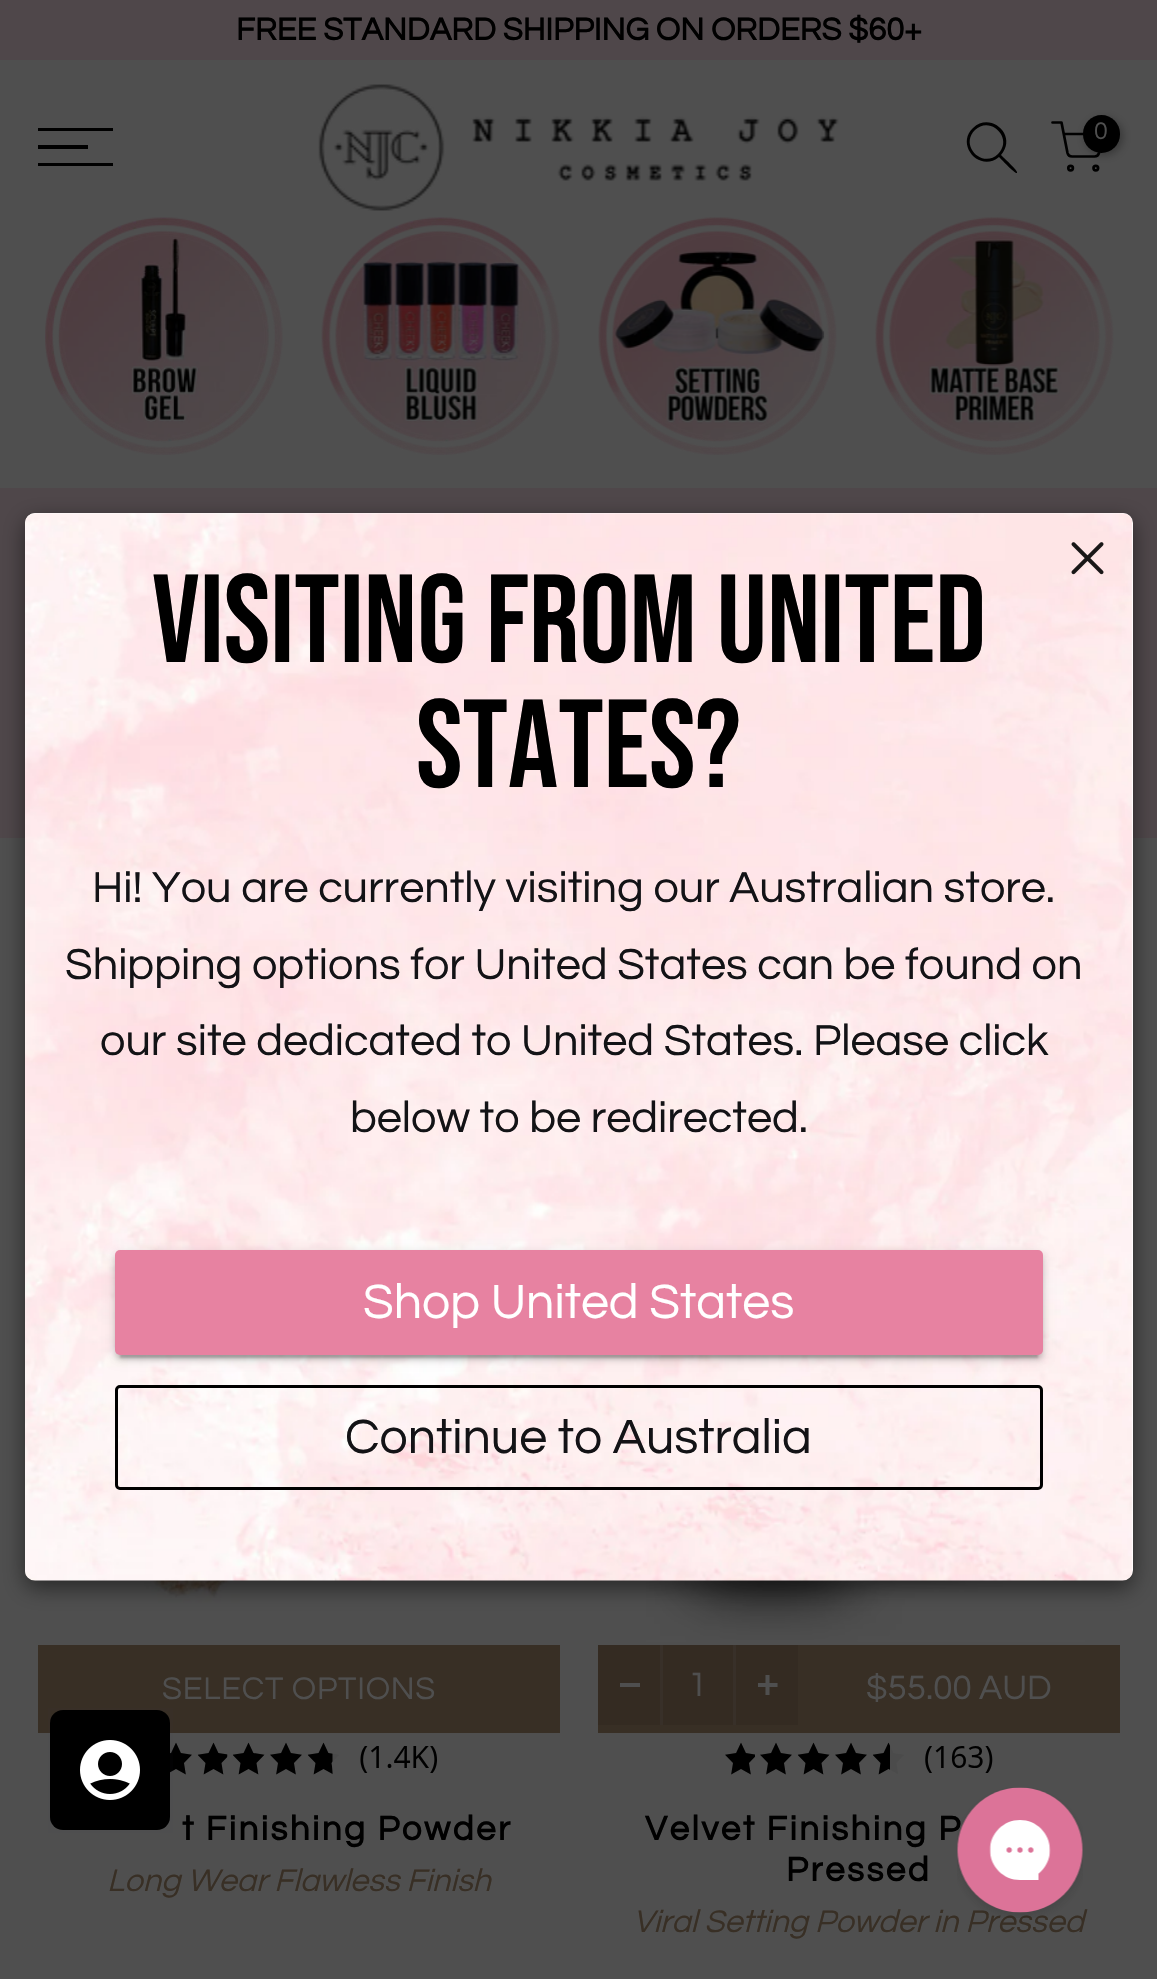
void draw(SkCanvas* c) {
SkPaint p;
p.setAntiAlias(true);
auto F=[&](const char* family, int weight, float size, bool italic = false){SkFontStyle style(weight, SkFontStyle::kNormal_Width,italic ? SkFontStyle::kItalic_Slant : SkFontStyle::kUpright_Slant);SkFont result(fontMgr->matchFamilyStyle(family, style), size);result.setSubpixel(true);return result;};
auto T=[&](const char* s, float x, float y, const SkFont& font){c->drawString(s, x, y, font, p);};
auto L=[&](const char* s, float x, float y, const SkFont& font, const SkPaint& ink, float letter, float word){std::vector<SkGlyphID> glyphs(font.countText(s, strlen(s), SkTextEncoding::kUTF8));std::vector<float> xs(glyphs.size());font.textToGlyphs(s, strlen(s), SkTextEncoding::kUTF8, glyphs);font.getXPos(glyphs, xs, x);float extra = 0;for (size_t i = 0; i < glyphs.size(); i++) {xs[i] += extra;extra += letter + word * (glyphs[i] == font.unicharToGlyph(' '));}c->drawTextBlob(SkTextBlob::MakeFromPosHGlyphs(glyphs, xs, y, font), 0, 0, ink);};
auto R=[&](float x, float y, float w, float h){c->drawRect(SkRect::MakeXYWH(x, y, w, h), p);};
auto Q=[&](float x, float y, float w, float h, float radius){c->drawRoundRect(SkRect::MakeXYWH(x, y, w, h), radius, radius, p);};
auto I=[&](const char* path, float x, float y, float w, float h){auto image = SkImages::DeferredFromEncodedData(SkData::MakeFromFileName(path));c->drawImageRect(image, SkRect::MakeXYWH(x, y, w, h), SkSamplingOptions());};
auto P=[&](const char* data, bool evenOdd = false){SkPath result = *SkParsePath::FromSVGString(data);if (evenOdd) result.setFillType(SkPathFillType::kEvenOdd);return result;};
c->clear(0xff4f4f4f);
p.setColor(0xff4f474a);
R(0,0,1157,60);
auto f1 = F("Questrial",700,32.5);
p.setColor(0xff000000);
T("FREE STANDARD SHIPPING ON ORDERS $60+",236,40,f1);
R(38,128,75,3);
R(38,145,50,4);
R(38,163,75,3);
I("1.png",318,84,521,127);
c->drawPath(P("M998 154c-15 15-39-8-23-24c15-15 39 8 23 24zm1 3c-19 16-44-12-26-29c18-17 45 8 28 27c2 2 16 15 16 17v1c-2 1-16-14-18-16z",true),p);
p.setStroke(true);
p.setStrokeWidth(2.7);
p.setStrokeCap(SkPaint::kRound_Cap);
p.setStrokeJoin(SkPaint::kRound_Join);
c->drawPath(P("M1052.5 122.5h9l6 30.5c.5 2 2.5 3.5 4.5 3.5h22.5c2 0 4-1.5 4.5-3.5l3.5-19h-38.5"),p);
p.setStrokeCap(SkPaint::kButt_Cap);
p.setStrokeJoin(SkPaint::kMiter_Join);
c->drawCircle(1070.6,168.1,2.3,p);
c->drawCircle(1095.8,168.1,2.3,p);
p.setStroke(false);
p.setColor(0x4d000000);
p.setMaskFilter(SkMaskFilter::MakeBlur(kNormal_SkBlurStyle, 4));
c->drawRoundRect(SkRect::MakeXYWH(1085,118,38,37),18.5,18.5,p);
p.setMaskFilter(nullptr);
p.setColor(0xff000000);
Q(1083,115,37,38,18.5);
auto f2 = F("Questrial",400,25);
p.setColor(0xff4f4f4f);
T("0",1094,139,f2);
I("2.png",45,217,238,238);
I("3.png",321,217,239,238);
I("4.png",598,217,239,238);
I("5.png",875,217,239,238);
p.setColor(0xff4f474a);
R(0,488,1157,350);
I("6.png",46,1580,485,23);
p.setColor(0xff382f25);
R(38,1645,522,88);
auto f3 = F("Questrial",400,32.5);
p.setColor(0xff4f4f4f);
L("SELECT OPTIONS",162,1699,f3,p,.75,0);
I("7.png",170,1742,267,33);
auto f4 = F("Questrial",700,35);
p.setColor(0xff000000);
L("t Finishing Powder",182,1840,f4,p,2.5,0);
auto f5 = F("Questrial",400,32.5,true);
p.setColor(0xff382f25);
T("Long Wear Flawless Finish",107,1891,f5);
I("8.png",646,1580,439,62);
R(598,1645,522,88);
p.setColor(0xff342b22);
R(598,1645,200,80);
p.setColor(0xff4f4f4f);
R(620,1683,20,4);
p.setColor(0xff383029);
R(733,1645,3,80);
R(660,1645,3,80);
auto f6 = F("Questrial",400,35);
p.setColor(0xff4f4f4f);
T("1",688,1696,f6);
I("9.png",758,1675,20,20);
T("$55.00 AUD",866,1699,f6);
I("10.png",725,1742,268,33);
p.setColor(0xff000000);
L("Velvet Finishing P",645,1840,f4,p,2.5,0);
L("Pressed",786,1881,f4,p,2.5,0);
p.setColor(0xff382f25);
T("Viral Setting Powder in Pressed",633,1932,f5);
p.setColor(0x80000000);
p.setMaskFilter(SkMaskFilter::MakeBlur(kNormal_SkBlurStyle, 11));
c->drawRoundRect(SkRect::MakeXYWH(25,520,1108,1068),10,10,p);
p.setMaskFilter(nullptr);
p.setColor(0xffffffff);
Q(25,513,1108,1067,10);
I("11.png",25,513,1108,1068);
I("12.png",1071,542,33,33);
auto f7 = F("Bebas Neue",400,125);
p.setColor(0xff000000);
T("Visiting from United",152,662,f7);
T("States?",416,787,f7);
auto f8 = F("Questrial",400,45);
p.setColor(0xff131316);
T("Hi! You are currently visiting our Australian store.",92,902,f8);
T("Shipping options for United States can be found on",65,979,f8);
T("our site dedicated to United States. Please click",100,1055,f8);
T("below to be redirected.",350,1132,f8);
p.setColor(0x1f000000);
p.setMaskFilter(SkMaskFilter::MakeBlur(kNormal_SkBlurStyle, 6));
c->drawRoundRect(SkRect::MakeXYWH(115,1253,928,105),5,5,p);
p.setMaskFilter(nullptr);
p.setColor(0x33000000);
p.setMaskFilter(SkMaskFilter::MakeBlur(kNormal_SkBlurStyle, 1));
c->drawRect(SkRect::MakeXYWH(120,1263,918,95),p);
p.setMaskFilter(nullptr);
p.setColor(0x24000000);
p.setMaskFilter(SkMaskFilter::MakeBlur(kNormal_SkBlurStyle, 2.5));
c->drawRoundRect(SkRect::MakeXYWH(115,1255,928,105),5,5,p);
p.setMaskFilter(nullptr);
p.setColor(0xffe782a1);
Q(115,1250,928,105,5);
auto f9 = F("Questrial",400,50);
p.setColor(0xffffffff);
T("Shop United States",363,1318,f9);
p.setStroke(true);
p.setStrokeWidth(3);
p.setColor(0xff000000);
c->drawRoundRect(SkRect::MakeXYWH(116.5,1386.5,925,102),3.5,3.5,p);
p.setStroke(false);
p.setColor(0xff131316);
T("Continue to Australia",345,1453,f9);
p.setStroke(true);
p.setColor(0x0a373f47);
c->drawRect(SkRect::MakeXYWH(49.5,1709.5,122,122),p);
p.setStroke(false);
p.setColor(0xff000000);
Q(50,1710,120,120,13);
I("13.png",80,1740,60,60);
I("14.png",957,1787,126,131);
}
